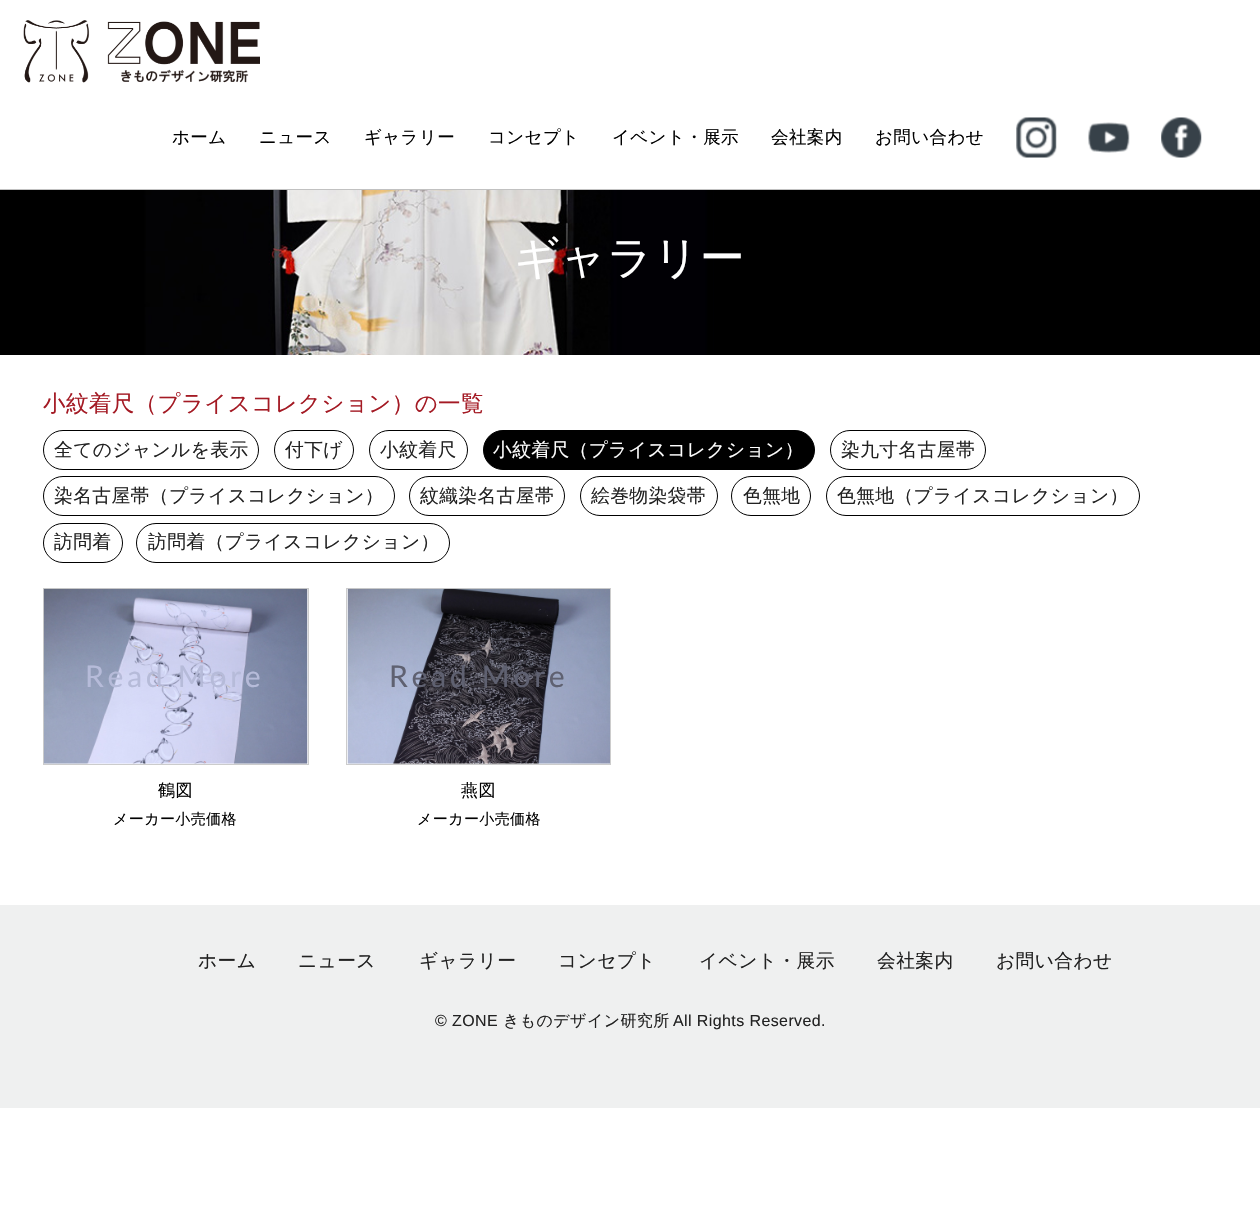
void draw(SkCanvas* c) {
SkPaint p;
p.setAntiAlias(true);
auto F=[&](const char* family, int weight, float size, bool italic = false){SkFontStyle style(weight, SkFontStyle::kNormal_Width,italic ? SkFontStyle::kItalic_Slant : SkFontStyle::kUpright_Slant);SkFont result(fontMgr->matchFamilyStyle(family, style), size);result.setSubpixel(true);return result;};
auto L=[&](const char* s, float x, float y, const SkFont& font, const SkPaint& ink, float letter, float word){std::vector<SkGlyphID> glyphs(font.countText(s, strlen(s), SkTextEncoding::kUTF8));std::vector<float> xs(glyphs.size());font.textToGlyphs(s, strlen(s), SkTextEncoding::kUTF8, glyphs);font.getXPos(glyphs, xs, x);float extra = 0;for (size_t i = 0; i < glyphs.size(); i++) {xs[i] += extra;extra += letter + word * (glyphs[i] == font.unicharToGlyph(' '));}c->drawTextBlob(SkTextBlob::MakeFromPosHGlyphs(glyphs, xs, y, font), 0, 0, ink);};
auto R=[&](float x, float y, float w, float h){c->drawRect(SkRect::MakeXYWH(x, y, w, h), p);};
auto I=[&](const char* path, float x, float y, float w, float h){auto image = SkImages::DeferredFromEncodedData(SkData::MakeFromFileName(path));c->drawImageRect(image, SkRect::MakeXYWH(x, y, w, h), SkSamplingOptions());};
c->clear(0xffffffff);
p.setColor(0xffc1c1c1);
R(0,189,1260,1);
I("1.png",23,20,237,63);
auto f1 = F("WenQuanYi Zen Hei",500,17.5);
p.setColor(0xff000000);
L("ホーム",172,143,f1,p,.4,0);
L("ニュース",259,143,f1,p,.4,0);
L("ギャラリー",364,143,f1,p,.4,0);
L("コンセプト",488,143,f1,p,.4,0);
L("イベント・展示",612,143,f1,p,.4,0);
L("会社案内",771,143,f1,p,.4,0);
L("お問い合わせ",875,143,f1,p,.4,0);
I("2.png",1016,117,41,41);
I("3.png",1088,122,42,31);
I("4.png",1161,117,41,41);
I("5.png",0,190,1260,165);
auto f2 = F("WenQuanYi Zen Hei",500,45);
p.setColor(0xffffffff);
L("ギャラリー",514,273,f2,p,.4,0);
auto f3 = F("WenQuanYi Zen Hei",500,22.5);
p.setColor(0xffa41a24);
L("小紋着尺（プライスコレクション）の一覧",43,411,f3,p,.4,0);
p.setStroke(true);
p.setStrokeWidth(1);
p.setColor(0xff000000);
c->drawRoundRect(SkRect::MakeXYWH(43.5,430.5,215,39),19.5,19.5,p);
auto f4 = F("WenQuanYi Zen Hei",500,18.75);
p.setStroke(false);
p.setColor(0xff222222);
L("全てのジャンルを表示",54,456,f4,p,.4,0);
p.setStroke(true);
p.setColor(0xff000000);
c->drawRoundRect(SkRect::MakeXYWH(274.5,430.5,79,39),19.5,19.5,p);
p.setStroke(false);
p.setColor(0xff222222);
L("付下げ",285,456,f4,p,.4,0);
p.setStroke(true);
p.setColor(0xff000000);
c->drawRoundRect(SkRect::MakeXYWH(369.5,430.5,98,39),19.5,19.5,p);
p.setStroke(false);
p.setColor(0xff222222);
L("小紋着尺",380,456,f4,p,.4,0);
p.setColor(0xff000000);
c->drawRoundRect(SkRect::MakeXYWH(483.5,430.5,331,39),19.5,19.5,p);
p.setStroke(true);
c->drawRoundRect(SkRect::MakeXYWH(483.5,430.5,331,39),19.5,19.5,p);
p.setStroke(false);
p.setColor(0xffffffff);
L("小紋着尺（プライスコレクション）",493,456,f4,p,.4,0);
p.setStroke(true);
p.setColor(0xff000000);
c->drawRoundRect(SkRect::MakeXYWH(830.5,430.5,155,39),19.5,19.5,p);
p.setStroke(false);
p.setColor(0xff222222);
L("染九寸名古屋帯",841,456,f4,p,.4,0);
p.setStroke(true);
p.setColor(0xff000000);
c->drawRoundRect(SkRect::MakeXYWH(43.5,476.5,351,39),19.5,19.5,p);
p.setStroke(false);
p.setColor(0xff222222);
L("染名古屋帯（プライスコレクション）",54,502,f4,p,.4,0);
p.setStroke(true);
p.setColor(0xff000000);
c->drawRoundRect(SkRect::MakeXYWH(409.5,476.5,155,39),19.5,19.5,p);
p.setStroke(false);
p.setColor(0xff222222);
L("紋織染名古屋帯",420,502,f4,p,.4,0);
p.setStroke(true);
p.setColor(0xff000000);
c->drawRoundRect(SkRect::MakeXYWH(580.5,476.5,137,39),19.5,19.5,p);
p.setStroke(false);
p.setColor(0xff222222);
L("絵巻物染袋帯",591,502,f4,p,.4,0);
p.setStroke(true);
p.setColor(0xff000000);
c->drawRoundRect(SkRect::MakeXYWH(731.5,476.5,79,39),19.5,19.5,p);
p.setStroke(false);
p.setColor(0xff222222);
L("色無地",743,502,f4,p,.4,0);
p.setStroke(true);
p.setColor(0xff000000);
c->drawRoundRect(SkRect::MakeXYWH(826.5,476.5,313,39),19.5,19.5,p);
p.setStroke(false);
p.setColor(0xff222222);
L("色無地（プライスコレクション）",837,502,f4,p,.4,0);
p.setStroke(true);
p.setColor(0xff000000);
c->drawRoundRect(SkRect::MakeXYWH(43.5,523.5,79,39),19.5,19.5,p);
p.setStroke(false);
p.setColor(0xff222222);
L("訪問着",54,548,f4,p,.4,0);
p.setStroke(true);
p.setColor(0xff000000);
c->drawRoundRect(SkRect::MakeXYWH(136.5,523.5,313,39),19.5,19.5,p);
p.setStroke(false);
p.setColor(0xff222222);
L("訪問着（プライスコレクション）",148,548,f4,p,.4,0);
p.setStroke(true);
p.setColor(0xffcccccc);
c->drawRect(SkRect::MakeXYWH(43.5,588.5,265,176),p);
I("6.png",43,588,265,176);
auto f5 = F("Lato",400,30);
p.setStroke(false);
p.setColor(0xffb6bbd9);
L("Read More",85,687,f5,p,3.75,0);
auto f6 = F("WenQuanYi Zen Hei",500,17);
p.setColor(0xff000000);
L("鶴図",158,796,f6,p,.4,0);
auto f7 = F("WenQuanYi Zen Hei",500,15);
L("メーカー小売価格",113,824,f7,p,.4,0);
p.setStroke(true);
p.setColor(0xffcccccc);
c->drawRect(SkRect::MakeXYWH(346.5,588.5,264,176),p);
I("7.png",347,588,263,176);
p.setStroke(false);
p.setColor(0xff5f6171);
L("Read More",389,687,f5,p,3.75,0);
p.setColor(0xff000000);
L("燕図",461,796,f6,p,.4,0);
L("メーカー小売価格",417,824,f7,p,.4,0);
p.setColor(0xffeff0f0);
R(0,905,1260,203);
p.setColor(0xff222222);
L("ホーム",198,967,f4,p,.4,0);
L("ニュース",298,967,f4,p,.4,0);
L("ギャラリー",419,967,f4,p,.4,0);
L("コンセプト",558,967,f4,p,.4,0);
L("イベント・展示",699,967,f4,p,.4,0);
L("会社案内",877,967,f4,p,.4,0);
L("お問い合わせ",996,967,f4,p,.4,0);
auto f8 = F("Liberation Sans",400,16);
L("© ZONE",435,1026,f8,p,.4,0);
auto f9 = F("WenQuanYi Zen Hei",500,16);
L("きものデザイン研究所",503,1026,f9,p,.4,0);
L("All Rights Reserved.",673,1026,f8,p,.4,0);
}
